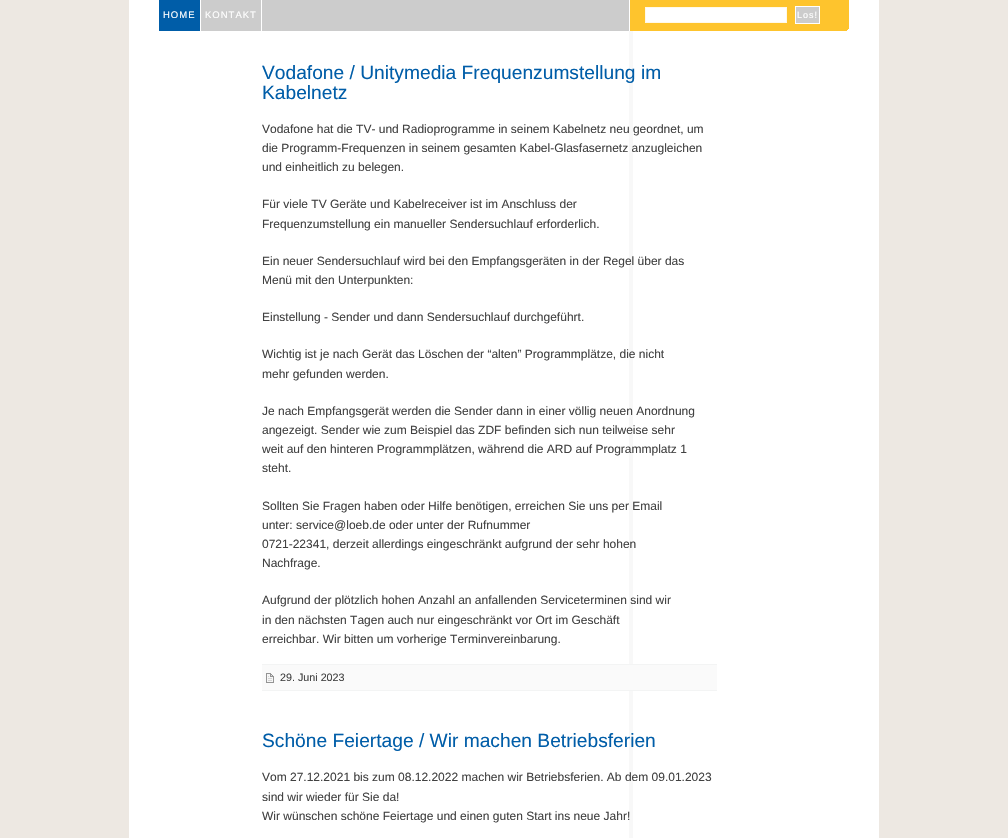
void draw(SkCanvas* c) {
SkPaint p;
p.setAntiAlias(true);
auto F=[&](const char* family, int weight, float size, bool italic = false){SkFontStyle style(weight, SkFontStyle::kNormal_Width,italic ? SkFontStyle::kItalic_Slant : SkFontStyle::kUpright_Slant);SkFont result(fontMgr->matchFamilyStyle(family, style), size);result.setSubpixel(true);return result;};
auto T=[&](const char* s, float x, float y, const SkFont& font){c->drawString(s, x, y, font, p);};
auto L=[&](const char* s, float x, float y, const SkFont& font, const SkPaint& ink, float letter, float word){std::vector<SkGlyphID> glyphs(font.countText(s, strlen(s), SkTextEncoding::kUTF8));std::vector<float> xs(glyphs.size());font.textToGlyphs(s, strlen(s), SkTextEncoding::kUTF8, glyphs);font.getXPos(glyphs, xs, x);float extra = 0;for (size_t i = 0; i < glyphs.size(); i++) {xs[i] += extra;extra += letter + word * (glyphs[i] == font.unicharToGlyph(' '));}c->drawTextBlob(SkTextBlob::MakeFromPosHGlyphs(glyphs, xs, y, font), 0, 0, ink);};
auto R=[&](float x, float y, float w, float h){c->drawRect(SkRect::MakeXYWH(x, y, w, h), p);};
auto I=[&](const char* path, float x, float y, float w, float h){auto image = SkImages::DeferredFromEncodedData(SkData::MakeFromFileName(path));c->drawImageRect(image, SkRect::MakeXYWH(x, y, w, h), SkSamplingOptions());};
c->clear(0xffede8e2);
p.setColor(0xffffffff);
R(129,0,750,838);
p.setColor(0xfff8f8f8);
R(629,31,4,807);
p.setColor(0xffcccccc);
R(201,0,428,31);
p.setColor(0xff005da8);
R(159,0,41,31);
auto f1 = F("Liberation Sans",400,9.5);
p.setColor(0xffffffff);
L("HOME",163,18,f1,p,1,0);
R(261,0,1,31);
L("KONTAKT",205,18,f1,p,1,0);
p.setColor(0xfffec42d);
R(630,0,219,31);
I("1.png",847,29,2,2);
p.setColor(0xffffffff);
c->drawRect(SkRect::MakeXYWH(645.5,7.5,141,15),p);
p.setStroke(true);
p.setStrokeWidth(1);
p.setColor(0xfffff9ea);
c->drawRect(SkRect::MakeXYWH(645.5,7.5,141,15),p);
p.setStroke(false);
p.setColor(0xffcccccc);
c->drawRect(SkRect::MakeXYWH(795.5,6.5,24,17),p);
p.setStroke(true);
p.setColor(0xffffffff);
c->drawRect(SkRect::MakeXYWH(795.5,6.5,24,17),p);
auto f2 = F("Liberation Sans",400,9);
p.setStroke(false);
L("Los!",797,18,f2,p,1,0);
auto f3 = F("Liberation Sans",400,19.2);
p.setColor(0xff005da8);
T("Vodafone / Unitymedia Frequenzumstellung im",262,79,f3);
T("Kabelnetz",262,99,f3);
auto f4 = F("Liberation Sans",400,12);
p.setColor(0xff414141);
T("Vodafone hat die TV- und Radioprogramme in seinem Kabelnetz neu geordnet, um",262,133,f4);
T("die Programm-Frequenzen in seinem gesamten Kabel-Glasfasernetz anzugleichen",262,152,f4);
T("und einheitlich zu belegen.",262,171,f4);
T("Für viele TV Geräte und Kabelreceiver ist im Anschluss der",262,208,f4);
T("Frequenzumstellung ein manueller Sendersuchlauf erforderlich.",262,228,f4);
T("Ein neuer Sendersuchlauf wird bei den Empfangsgeräten in der Regel über das",262,265,f4);
T("Menü mit den Unterpunkten:",262,284,f4);
T("Einstellung - Sender und dann Sendersuchlauf durchgeführt.",262,321,f4);
T("Wichtig ist je nach Gerät das Löschen der “alten” Programmplätze, die nicht",262,358,f4);
T("mehr gefunden werden.",262,378,f4);
T("Je nach Empfangsgerät werden die Sender dann in einer völlig neuen Anordnung",262,415,f4);
T("angezeigt. Sender wie zum Beispiel das ZDF befinden sich nun teilweise sehr",262,434,f4);
T("weit auf den hinteren Programmplätzen, während die ARD auf Programmplatz 1",262,453,f4);
T("steht.",262,472,f4);
T("Sollten Sie Fragen haben oder Hilfe benötigen, erreichen Sie uns per Email",262,510,f4);
T("unter: service@loeb.de oder unter der Rufnummer",262,529,f4);
T("0721-22341, derzeit allerdings eingeschränkt aufgrund der sehr hohen",262,548,f4);
T("Nachfrage.",262,567,f4);
T("Aufgrund der plötzlich hohen Anzahl an anfallenden Serviceterminen sind wir",262,604,f4);
T("in den nächsten Tagen auch nur eingeschränkt vor Ort im Geschäft",262,624,f4);
T("erreichbar. Wir bitten um vorherige Terminvereinbarung.",262,643,f4);
p.setColor(0xfffafafa);
R(262,665,455,25);
p.setColor(0xfff3f4f4);
R(262,664,455,1);
R(262,690,455,1);
I("2.png",266,673,8,10);
auto f5 = F("Liberation Sans",400,10.75);
p.setColor(0xff414141);
T("29. Juni 2023",280,681,f5);
p.setColor(0xff005da8);
T("Schöne Feiertage / Wir machen Betriebsferien",262,747,f3);
p.setColor(0xff414141);
T("Vom 27.12.2021 bis zum 08.12.2022 machen wir Betriebsferien. Ab dem 09.01.2023",262,781,f4);
T("sind wir wieder für Sie da!",262,801,f4);
T("Wir wünschen schöne Feiertage und einen guten Start ins neue Jahr!",262,820,f4);
}
